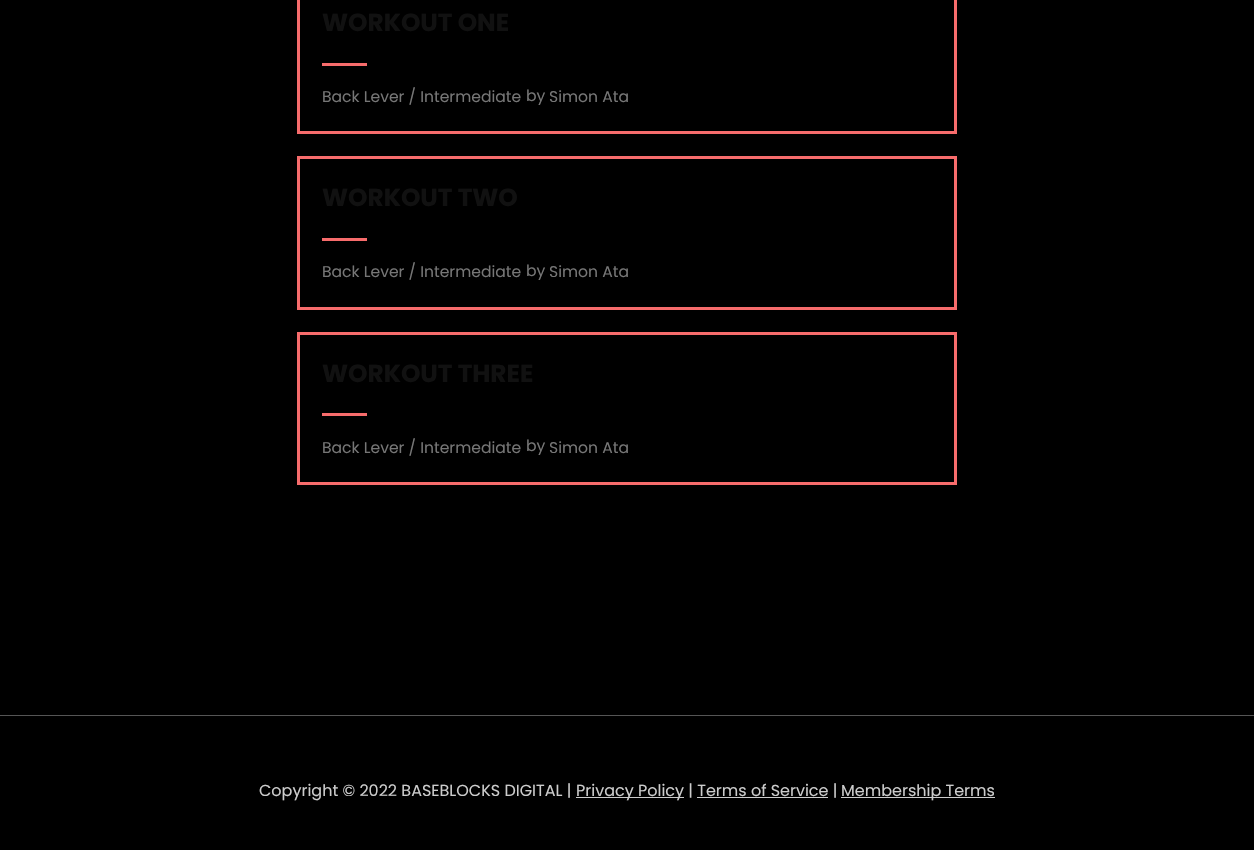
void draw(SkCanvas* c) {
SkPaint p;
p.setAntiAlias(true);
auto F=[&](const char* family, int weight, float size, bool italic = false){SkFontStyle style(weight, SkFontStyle::kNormal_Width,italic ? SkFontStyle::kItalic_Slant : SkFontStyle::kUpright_Slant);SkFont result(fontMgr->matchFamilyStyle(family, style), size);result.setSubpixel(true);return result;};
auto T=[&](const char* s, float x, float y, const SkFont& font){c->drawString(s, x, y, font, p);};
auto R=[&](float x, float y, float w, float h){c->drawRect(SkRect::MakeXYWH(x, y, w, h), p);};
c->clear(0xff000000);
p.setStroke(true);
p.setStrokeWidth(3);
p.setColor(0xfff76c6c);
c->drawRect(SkRect::MakeXYWH(298.5,-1.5,657,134),p);
auto f1 = F("Poppins",700,24.75);
p.setStroke(false);
p.setColor(0xff111111);
T("WORKOUT ONE",322,31,f1);
p.setColor(0xfff76c6c);
R(322,63,45,3);
auto f2 = F("Poppins",400,15.6);
p.setColor(0xff767676);
T("Back Lever / Intermediate",322,102,f2);
T("by",526,101,f2);
T("Simon Ata",549,102,f2);
p.setStroke(true);
p.setColor(0xfff76c6c);
c->drawRect(SkRect::MakeXYWH(298.5,157.5,657,151),p);
p.setStroke(false);
p.setColor(0xff111111);
T("WORKOUT TWO",322,206,f1);
p.setColor(0xfff76c6c);
R(322,238,45,3);
p.setColor(0xff767676);
T("Back Lever / Intermediate",322,277,f2);
T("by",526,276,f2);
T("Simon Ata",549,277,f2);
p.setStroke(true);
p.setColor(0xfff76c6c);
c->drawRect(SkRect::MakeXYWH(298.5,333.5,657,150),p);
p.setStroke(false);
p.setColor(0xff111111);
T("WORKOUT THREE",322,382,f1);
p.setColor(0xfff76c6c);
R(322,413,45,3);
p.setColor(0xff767676);
T("Back Lever / Intermediate",322,453,f2);
T("by",526,451,f2);
T("Simon Ata",549,453,f2);
p.setColor(0xff555555);
R(0,715,1254,1);
auto f3 = F("Poppins",400,16);
p.setColor(0xffcccccc);
T("Copyright © 2022 BASEBLOCKS DIGITAL |",259,796,f3);
R(576,797,108,1);
T("Privacy Policy | Terms of Service |",576,796,f3);
R(841,797,154,1);
T("Membership Terms",841,796,f3);
R(697,797,131,1);
}
